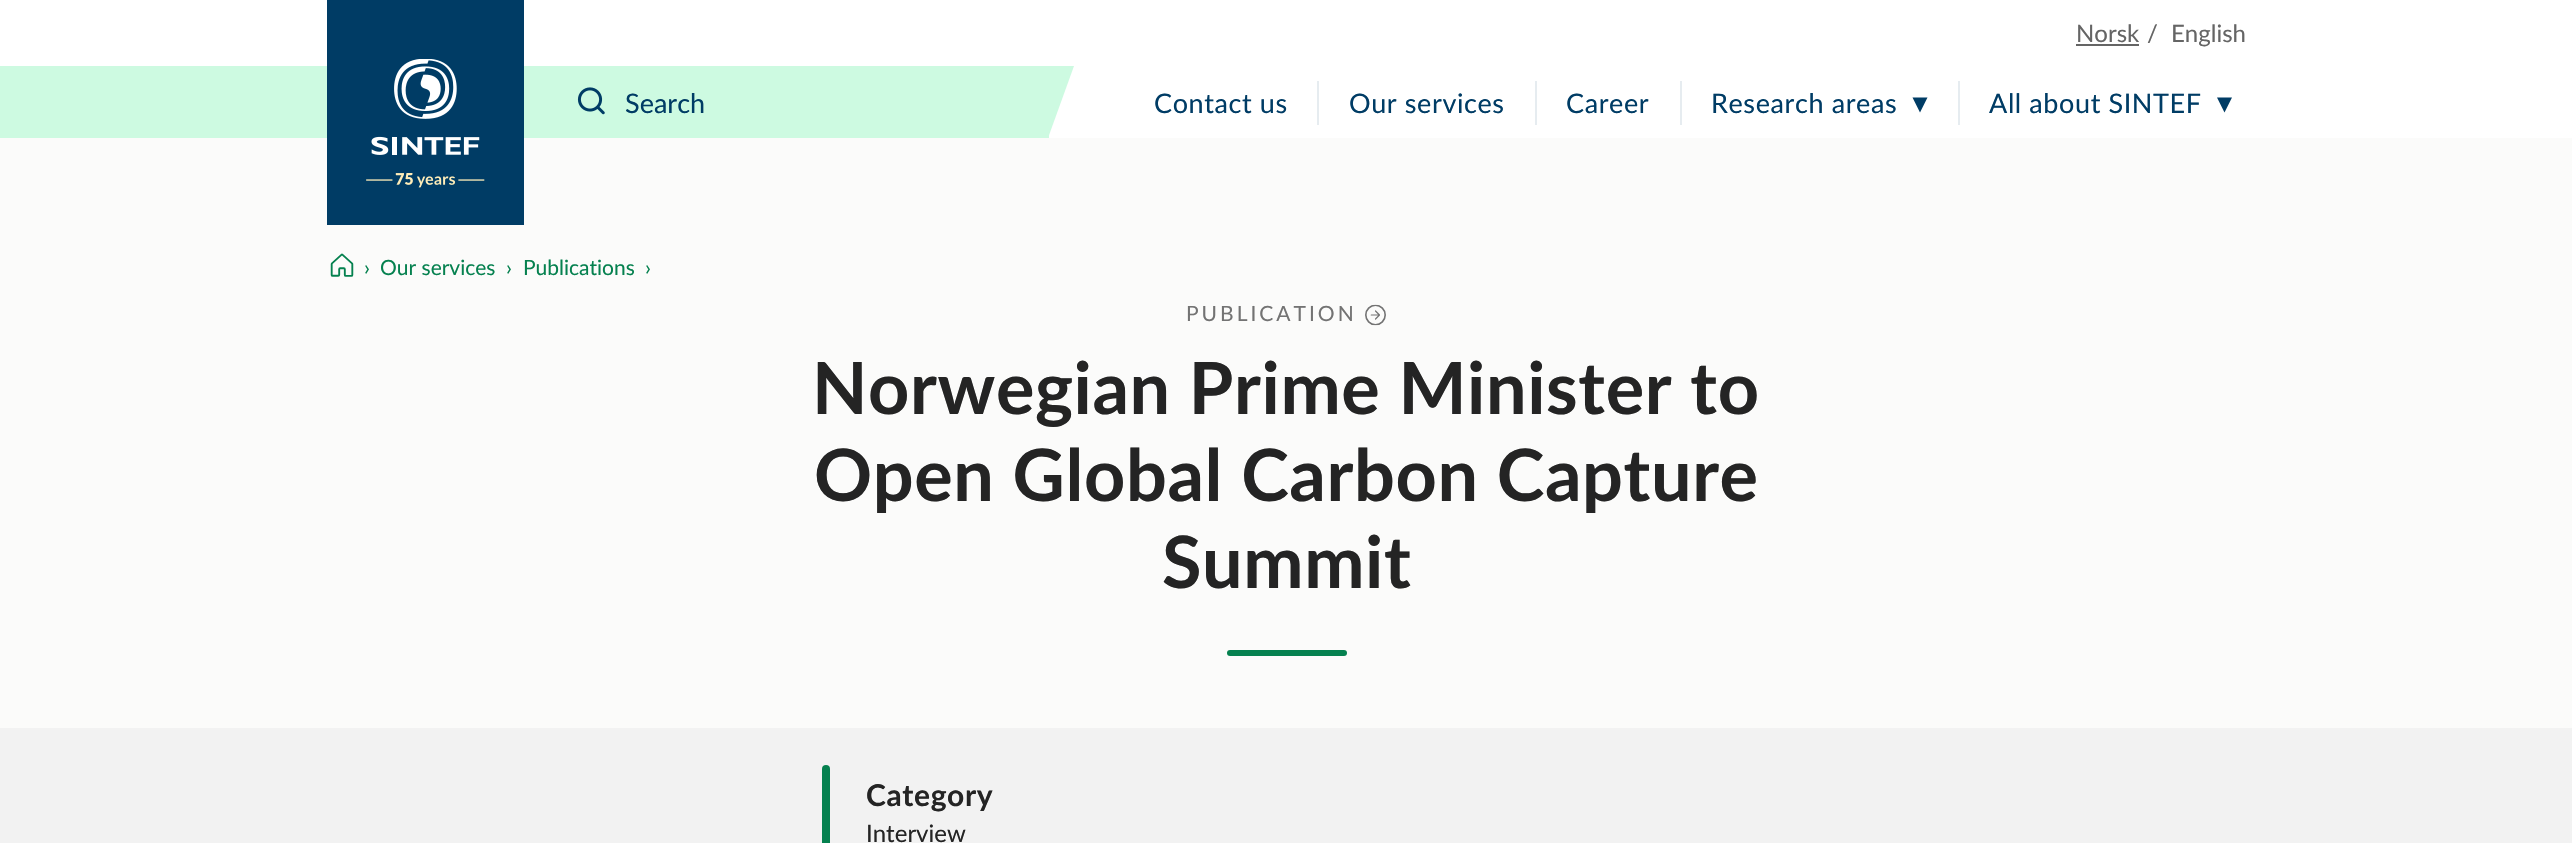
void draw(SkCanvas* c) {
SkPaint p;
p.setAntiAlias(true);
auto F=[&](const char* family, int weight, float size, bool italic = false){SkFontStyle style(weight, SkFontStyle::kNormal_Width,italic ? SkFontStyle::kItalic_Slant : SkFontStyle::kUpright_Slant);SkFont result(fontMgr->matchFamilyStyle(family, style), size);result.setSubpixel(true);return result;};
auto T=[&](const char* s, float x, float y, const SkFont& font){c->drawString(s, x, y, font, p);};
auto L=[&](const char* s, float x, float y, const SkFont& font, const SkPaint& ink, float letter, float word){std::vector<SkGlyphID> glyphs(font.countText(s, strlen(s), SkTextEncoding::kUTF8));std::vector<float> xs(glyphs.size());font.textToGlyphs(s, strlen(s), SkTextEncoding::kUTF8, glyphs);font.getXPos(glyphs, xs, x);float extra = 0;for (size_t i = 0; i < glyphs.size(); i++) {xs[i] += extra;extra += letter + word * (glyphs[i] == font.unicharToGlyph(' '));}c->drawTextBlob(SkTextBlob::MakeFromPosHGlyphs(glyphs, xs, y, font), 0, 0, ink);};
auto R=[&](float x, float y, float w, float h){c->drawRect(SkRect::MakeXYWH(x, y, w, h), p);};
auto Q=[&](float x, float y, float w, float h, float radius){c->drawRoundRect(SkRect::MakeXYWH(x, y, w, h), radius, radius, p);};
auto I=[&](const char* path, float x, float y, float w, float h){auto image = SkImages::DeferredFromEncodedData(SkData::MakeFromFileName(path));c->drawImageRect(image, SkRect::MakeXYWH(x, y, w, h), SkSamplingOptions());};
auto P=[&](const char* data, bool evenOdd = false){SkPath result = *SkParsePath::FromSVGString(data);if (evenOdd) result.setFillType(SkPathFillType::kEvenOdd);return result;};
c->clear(0xfffbfbfa);
p.setColor(0xffffffff);
R(0,0,2572,138);
p.setColor(0xffcdfae1);
c->drawPath(P("M549 66h525l-26 72h-525z"),p);
p.setColor(0xff003c65);
R(327,0,197,225);
I("1.png",366,59,119,129);
auto f1 = F("Lato",400,24);
p.setColor(0xff656565);
T("Norsk",2076,42,f1);
R(2076,44,63,2);
T("/",2147,42,f1);
T("English",2171,42,f1);
p.setColor(0xffcdfae1);
R(0,66,327,72);
R(524,66,525,72);
I("2.png",577,87,28,28);
auto f2 = F("Lato",400,27);
p.setColor(0xff003c65);
T("Search",625,113,f2);
L("Contact us",1154,113,f2,p,.6,0);
p.setColor(0xffe6ecf0);
R(1317,81,2,44);
p.setColor(0xff003c65);
L("Our services",1349,113,f2,p,.6,0);
p.setColor(0xffe6ecf0);
R(1535,81,2,44);
p.setColor(0xff003c65);
L("Career",1566,113,f2,p,.6,0);
p.setColor(0xffe6ecf0);
R(1680,81,2,44);
p.setColor(0xff003c65);
L("Research areas",1711,113,f2,p,.6,0);
c->drawPath(P("M1912.5 97.5h15l-7.5 15z"),p);
p.setColor(0xffe6ecf0);
R(1958,81,2,44);
p.setColor(0xff003c65);
L("All about SINTEF",1989,113,f2,p,.6,0);
c->drawPath(P("M2217 97.5h15l-7.5 15z"),p);
I("3.png",330,253,24,24);
auto f3 = F("Lato",400,21);
p.setColor(0xff05814f);
T("›",364,275,f3);
T("Our services",380,275,f3);
T("›",506,275,f3);
T("Publications",523,275,f3);
T("›",645,275,f3);
p.setColor(0xff737373);
L("PUBLICATION",1186,321,f3,p,3,0);
I("4.png",1365,304,21,22);
auto f4 = F("Lato",700,72);
p.setColor(0xff242424);
L("Norwegian Prime Minister to",812,414,f4,p,.6,0);
L("Open Global Carbon Capture",814,501,f4,p,.6,0);
L("Summit",1162,588,f4,p,.6,0);
p.setColor(0xff05814f);
Q(1227,650,120,6,3);
p.setColor(0xfff2f2f2);
R(0,728,2572,115);
p.setColor(0xff05814f);
Q(822,765,8,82,4);
auto f5 = F("Lato",700,30);
p.setColor(0xff242424);
L("Category",866,806,f5,p,.6,0);
T("Interview",866,842,f1);
}
